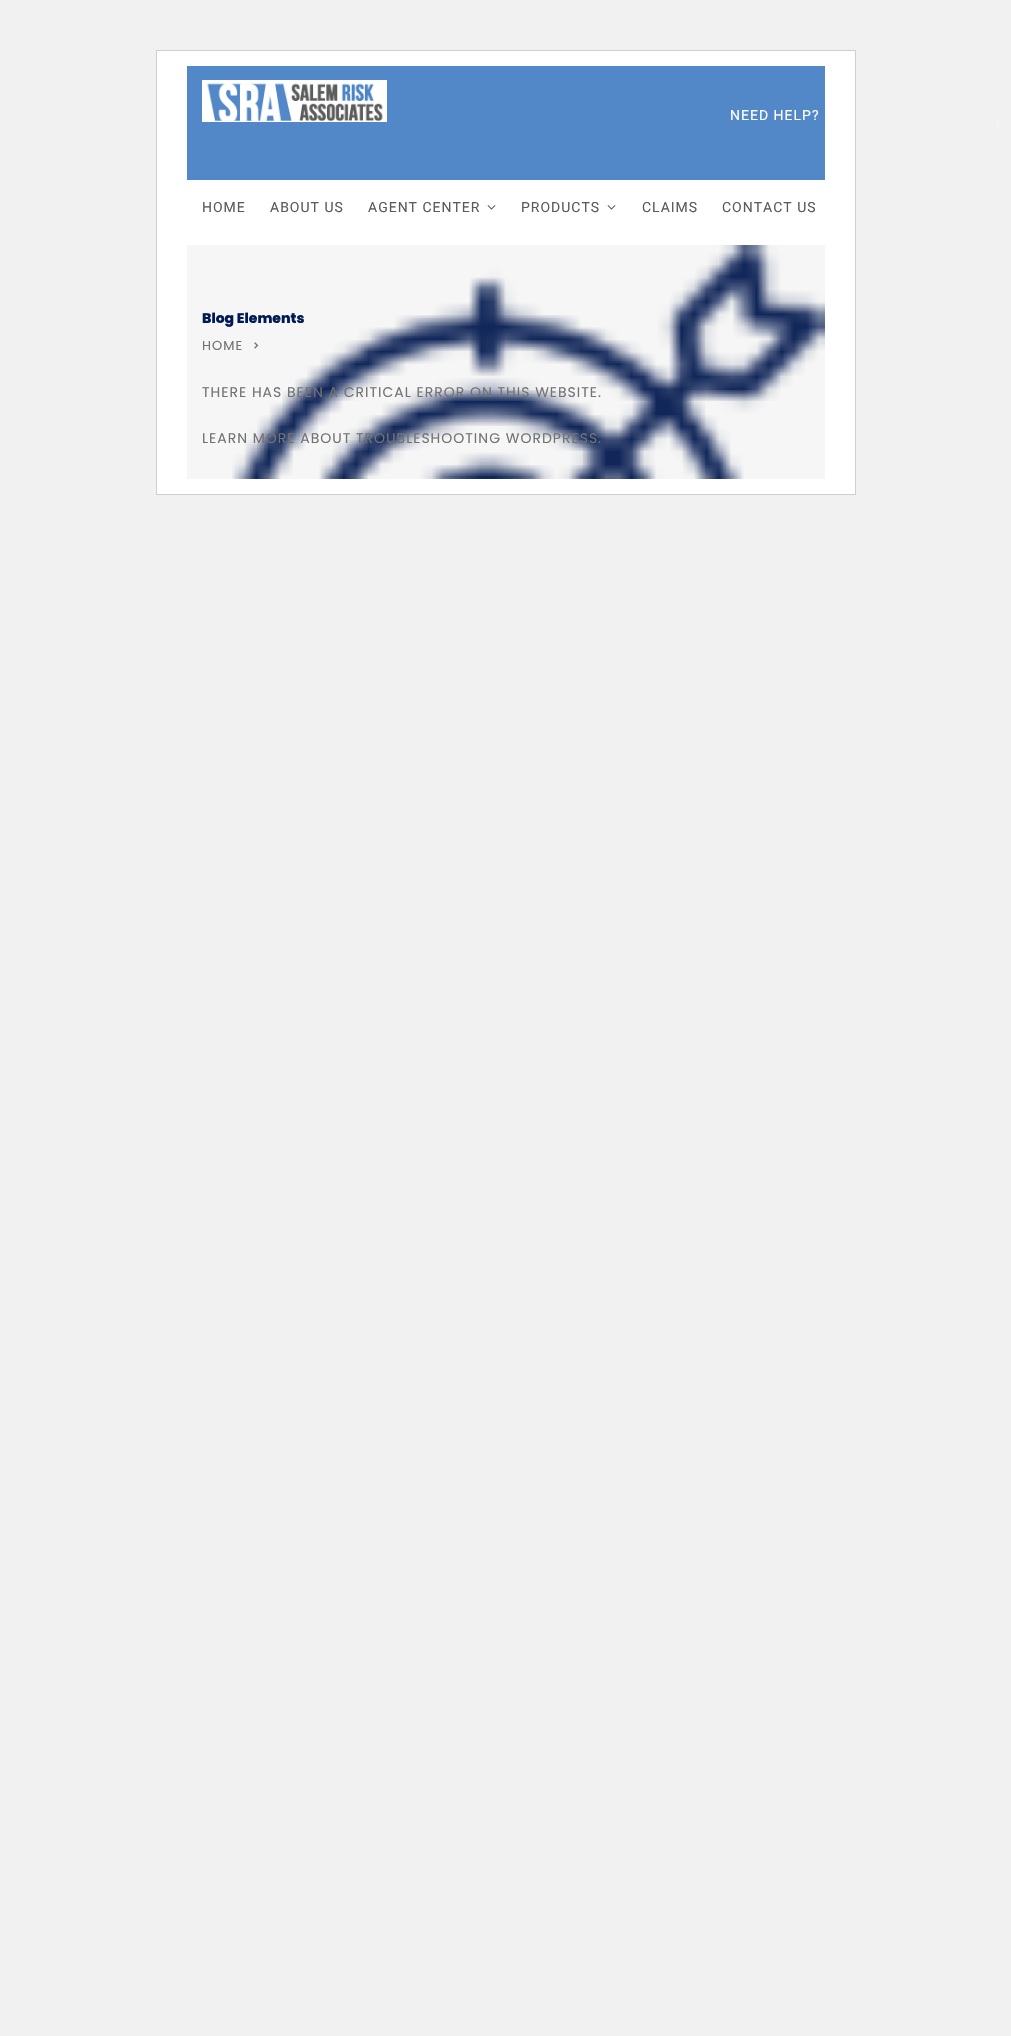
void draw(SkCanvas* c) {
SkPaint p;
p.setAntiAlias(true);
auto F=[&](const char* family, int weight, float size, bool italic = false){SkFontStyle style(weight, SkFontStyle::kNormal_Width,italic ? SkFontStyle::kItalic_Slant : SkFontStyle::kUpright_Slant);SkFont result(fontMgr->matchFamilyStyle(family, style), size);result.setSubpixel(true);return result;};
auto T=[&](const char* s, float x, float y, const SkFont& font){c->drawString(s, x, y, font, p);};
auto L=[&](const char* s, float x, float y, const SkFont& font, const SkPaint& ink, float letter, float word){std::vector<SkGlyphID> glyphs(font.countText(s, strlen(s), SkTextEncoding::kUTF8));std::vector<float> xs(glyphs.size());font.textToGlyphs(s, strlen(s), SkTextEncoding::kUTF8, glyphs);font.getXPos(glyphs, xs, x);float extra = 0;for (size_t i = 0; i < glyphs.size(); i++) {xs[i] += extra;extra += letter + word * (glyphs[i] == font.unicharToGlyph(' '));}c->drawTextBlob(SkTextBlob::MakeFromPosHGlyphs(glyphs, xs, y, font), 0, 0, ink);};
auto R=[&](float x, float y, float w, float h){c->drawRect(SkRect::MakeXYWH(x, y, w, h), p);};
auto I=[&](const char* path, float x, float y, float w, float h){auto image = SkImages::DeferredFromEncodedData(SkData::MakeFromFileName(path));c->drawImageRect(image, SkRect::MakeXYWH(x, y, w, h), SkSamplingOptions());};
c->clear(0xfff1f1f1);
p.setColor(0xffffffff);
c->drawRect(SkRect::MakeXYWH(156.5,50.5,699,444),p);
p.setStroke(true);
p.setStrokeWidth(1);
p.setColor(0xffccd0d4);
c->drawRect(SkRect::MakeXYWH(156.5,50.5,699,444),p);
p.setStroke(false);
p.setColor(0xff5288c7);
R(187,66,638,114);
I("1.png",202,80,185,42);
auto f1 = F("Roboto",400,14);
p.setColor(0xffffffff);
L("NEED HELP?",730,120,f1,p,1,0);
p.setColor(0xfff4f4f4);
R(997,113,1,22);
p.setColor(0xff5b5b5b);
L("HOME",202,212,f1,p,1,0);
L("ABOUT US",270,212,f1,p,1,0);
L("AGENT CENTER",368,212,f1,p,1,0);
I("2.png",487,205,9,5);
L("PRODUCTS",521,212,f1,p,1,0);
I("2.png",607,205,9,5);
L("CLAIMS",642,212,f1,p,1,0);
L("CONTACT US",722,212,f1,p,1,0);
p.setColor(0xfff6f6f6);
R(187,245,638,234);
I("3.png",232,245,593,234);
auto f2 = F("Poppins",800,14);
p.setColor(0xff001a57);
T("Blog Elements",202,323,f2);
auto f3 = F("Poppins",400,13);
p.setColor(0xff727272);
L("HOME",202,350,f3,p,1,0);
I("4.png",254,342,5,7);
auto f4 = F("Poppins",400,14);
L("THERE HAS BEEN A CRITICAL ERROR ON THIS WEBSITE.",202,397,f4,p,1,0);
L("LEARN MORE ABOUT TROUBLESHOOTING WORDPRESS.",202,443,f4,p,1,0);
}
